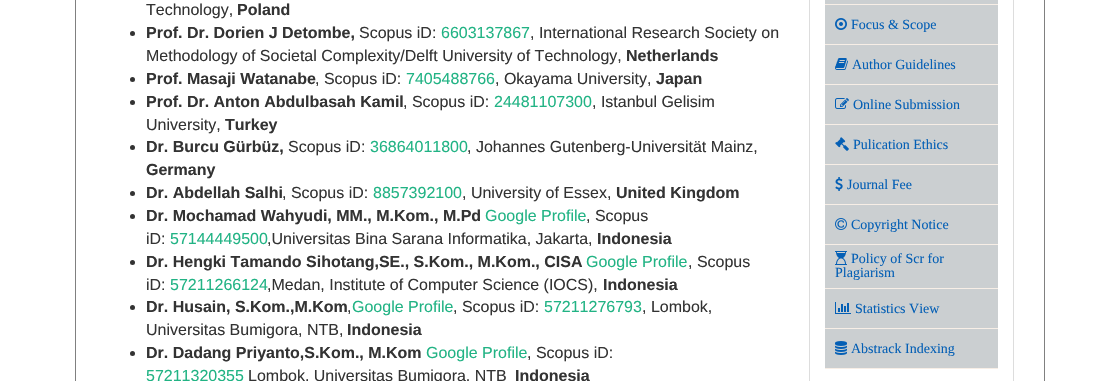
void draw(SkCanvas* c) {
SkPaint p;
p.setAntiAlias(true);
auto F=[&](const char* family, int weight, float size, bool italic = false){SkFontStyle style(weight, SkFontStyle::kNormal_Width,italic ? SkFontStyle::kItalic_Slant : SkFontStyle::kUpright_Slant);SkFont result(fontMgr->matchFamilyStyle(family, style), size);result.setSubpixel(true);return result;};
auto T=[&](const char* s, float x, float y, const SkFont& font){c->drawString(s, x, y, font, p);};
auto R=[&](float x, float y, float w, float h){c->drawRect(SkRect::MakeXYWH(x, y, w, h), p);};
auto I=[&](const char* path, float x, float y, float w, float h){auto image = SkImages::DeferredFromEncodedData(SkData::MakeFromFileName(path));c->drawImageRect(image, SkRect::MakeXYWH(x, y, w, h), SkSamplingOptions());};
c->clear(0xffffffff);
p.setColor(0xff808080);
R(1044,0,1,381);
R(75,0,1,381);
auto f1 = F("Liberation Sans",400,16);
p.setColor(0xff333333);
T("Technology,",146,15,f1);
auto f2 = F("Liberation Sans",700,16);
T("Poland",237,15,f2);
c->drawCircle(132.5,33.5,2.5,p);
T("Prof. Dr. Dorien J Detombe,",146,38,f2);
T("Scopus iD:",359,38,f1);
p.setColor(0xff21b384);
T("6603137867",441,38,f1);
p.setColor(0xff333333);
T(", International Research Society on",530,38,f1);
T("Methodology of Societal Complexity/Delft University of Technology,",146,61,f1);
T("Netherlands",626,61,f2);
c->drawCircle(132.5,79.5,2.5,p);
T("Prof. Masaji Watanabe",146,84,f2);
T(", Scopus iD:",315,84,f1);
p.setColor(0xff21b384);
T("7405488766",406,84,f1);
p.setColor(0xff333333);
T(", Okayama University,",495,84,f1);
T("Japan",656,84,f2);
c->drawCircle(132.5,102.5,2.5,p);
T("Prof. Dr. Anton Abdulbasah Kamil",146,107,f2);
T(", Scopus iD:",403,107,f1);
p.setColor(0xff21b384);
T("24481107300",494,107,f1);
p.setColor(0xff333333);
T(", Istanbul Gelisim",592,107,f1);
T("University,",146,130,f1);
T("Turkey",225,130,f2);
c->drawCircle(132.5,147.5,2.5,p);
T("Dr. Burcu Gürbüz,",146,152,f2);
T("Scopus iD:",288,152,f1);
p.setColor(0xff21b384);
T("36864011800",370,152,f1);
p.setColor(0xff333333);
T(", Johannes Gutenberg-Universität Mainz,",467,152,f1);
T("Germany",146,175,f2);
c->drawCircle(132.5,193.5,2.5,p);
T("Dr. Abdellah Salhi",146,198,f2);
T(", Scopus iD:",282,198,f1);
p.setColor(0xff21b384);
T("8857392100",373,198,f1);
p.setColor(0xff333333);
T(", University of Essex,",462,198,f1);
T("United Kingdom",616,198,f2);
c->drawCircle(132.5,216.5,2.5,p);
T("Dr. Mochamad Wahyudi, MM., M.Kom., M.Pd",146,221,f2);
p.setColor(0xff21b384);
T("Google Profile",485,221,f1);
p.setColor(0xff333333);
T(", Scopus",586,221,f1);
T("iD:",146,244,f1);
p.setColor(0xff21b384);
T("57144449500",170,244,f1);
p.setColor(0xff333333);
T(",Universitas Bina Sarana Informatika, Jakarta,",267,244,f1);
T("Indonesia",597,244,f2);
c->drawCircle(132.5,262.5,2.5,p);
T("Dr. Hengki Tamando Sihotang,SE., S.Kom., M.Kom., CISA",146,267,f2);
p.setColor(0xff21b384);
T("Google Profile",586,267,f1);
p.setColor(0xff333333);
T(", Scopus",688,267,f1);
T("iD:",146,290,f1);
p.setColor(0xff21b384);
T("57211266124",170,290,f1);
p.setColor(0xff333333);
T(",Medan, Institute of Computer Science (IOCS),",267,290,f1);
T("Indonesia",603,290,f2);
c->drawCircle(132.5,307.5,2.5,p);
T("Dr. Husain, S.Kom.,M.Kom",146,312,f2);
p.setColor(0xff21b384);
T("Google Profile",352,312,f1);
p.setColor(0xff333333);
T(", Scopus iD:",453,312,f1);
p.setColor(0xff21b384);
T("57211276793",544,312,f1);
p.setColor(0xff333333);
T(", Lombok,",642,312,f1);
T(",",347,312,f1);
T("Universitas Bumigora, NTB,",146,335,f1);
T("Indonesia",347,335,f2);
c->drawCircle(132.5,353.5,2.5,p);
T("Dr. Dadang Priyanto,S.Kom., M.Kom",146,358,f2);
p.setColor(0xff21b384);
T("Google Profile",426,358,f1);
p.setColor(0xff333333);
T(", Scopus iD:",527,358,f1);
p.setColor(0xff21b384);
T("57211320355",146,381,f1);
p.setColor(0xff333333);
T("Lombok, Universitas Bumigora, NTB",248,381,f1);
T("Indonesia",515,381,f2);
p.setStroke(true);
p.setStrokeWidth(1);
p.setColor(0xffdddddd);
c->drawRect(SkRect::MakeXYWH(809.5,-.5,204,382),p);
p.setStroke(false);
p.setColor(0xffcbcfd1);
R(825,0,173,4);
p.setColor(0xfff7eee6);
R(825,4,173,1);
p.setColor(0xffcbcfd1);
R(825,5,173,39);
p.setColor(0xfff7eee6);
R(825,44,173,1);
I("1.png",835,18,12,12);
auto f3 = F("Liberation Serif",400,14);
p.setColor(0xff045fb5);
T("Focus & Scope",851,29,f3);
p.setColor(0xffcbcfd1);
R(825,45,173,39);
p.setColor(0xfff7eee6);
R(825,84,173,1);
I("2.png",835,58,13,12);
p.setColor(0xff045fb5);
T("Author Guidelines",852,69,f3);
p.setColor(0xffcbcfd1);
R(825,85,173,39);
p.setColor(0xfff7eee6);
R(825,124,173,1);
I("3.png",835,98,14,11);
p.setColor(0xff045fb5);
T("Online Submission",853,109,f3);
p.setColor(0xffcbcfd1);
R(825,125,173,39);
p.setColor(0xfff7eee6);
R(825,164,173,1);
I("4.png",835,137,14,14);
p.setColor(0xff045fb5);
T("Pulication Ethics",853,149,f3);
p.setColor(0xffcbcfd1);
R(825,165,173,39);
p.setColor(0xfff7eee6);
R(825,204,173,1);
I("5.png",835,177,8,14);
p.setColor(0xff045fb5);
T("Journal Fee",847,189,f3);
p.setColor(0xffcbcfd1);
R(825,205,173,39);
p.setColor(0xfff7eee6);
R(825,244,173,1);
I("6.png",835,218,12,12);
p.setColor(0xff045fb5);
T("Copyright Notice",851,229,f3);
p.setColor(0xffcbcfd1);
R(825,245,173,43);
p.setColor(0xfff7eee6);
R(825,288,173,1);
I("7.png",835,251,12,14);
p.setColor(0xff045fb5);
T("Policy of Scr for",851,263,f3);
T("Plagiarism",835,277,f3);
p.setColor(0xffcbcfd1);
R(825,289,173,39);
p.setColor(0xfff7eee6);
R(825,328,173,1);
I("8.png",835,302,16,12);
p.setColor(0xff045fb5);
T("Statistics View",855,313,f3);
p.setColor(0xffcbcfd1);
R(825,329,173,39);
p.setColor(0xfff7eee6);
R(825,368,173,1);
I("9.png",835,341,12,14);
p.setColor(0xff045fb5);
T("Abstrack Indexing",851,353,f3);
}
